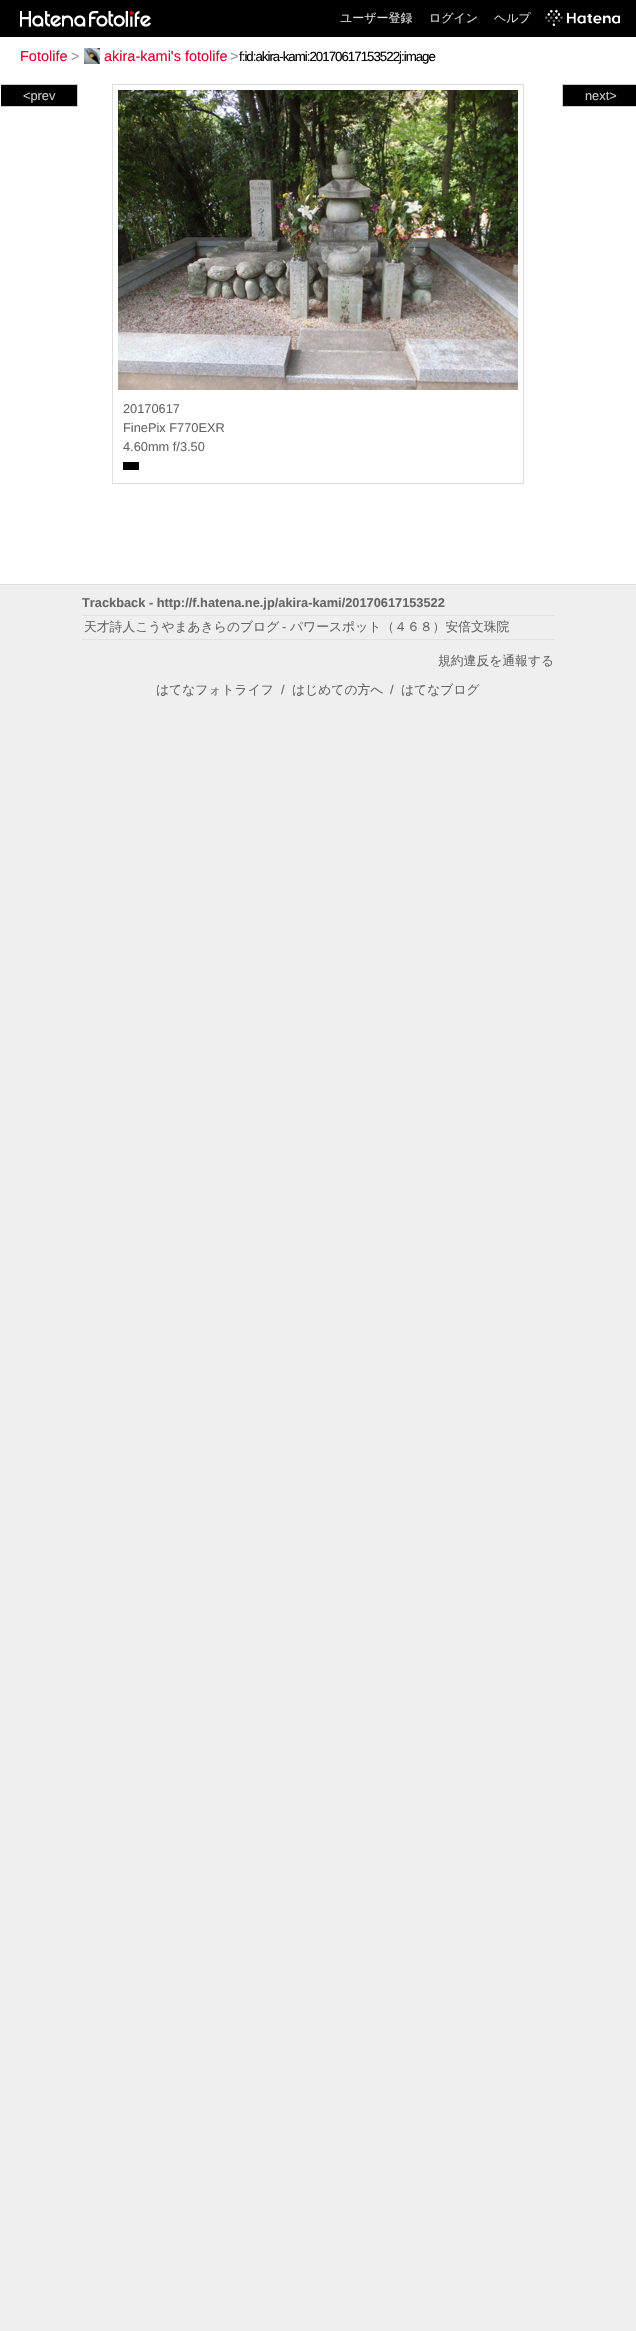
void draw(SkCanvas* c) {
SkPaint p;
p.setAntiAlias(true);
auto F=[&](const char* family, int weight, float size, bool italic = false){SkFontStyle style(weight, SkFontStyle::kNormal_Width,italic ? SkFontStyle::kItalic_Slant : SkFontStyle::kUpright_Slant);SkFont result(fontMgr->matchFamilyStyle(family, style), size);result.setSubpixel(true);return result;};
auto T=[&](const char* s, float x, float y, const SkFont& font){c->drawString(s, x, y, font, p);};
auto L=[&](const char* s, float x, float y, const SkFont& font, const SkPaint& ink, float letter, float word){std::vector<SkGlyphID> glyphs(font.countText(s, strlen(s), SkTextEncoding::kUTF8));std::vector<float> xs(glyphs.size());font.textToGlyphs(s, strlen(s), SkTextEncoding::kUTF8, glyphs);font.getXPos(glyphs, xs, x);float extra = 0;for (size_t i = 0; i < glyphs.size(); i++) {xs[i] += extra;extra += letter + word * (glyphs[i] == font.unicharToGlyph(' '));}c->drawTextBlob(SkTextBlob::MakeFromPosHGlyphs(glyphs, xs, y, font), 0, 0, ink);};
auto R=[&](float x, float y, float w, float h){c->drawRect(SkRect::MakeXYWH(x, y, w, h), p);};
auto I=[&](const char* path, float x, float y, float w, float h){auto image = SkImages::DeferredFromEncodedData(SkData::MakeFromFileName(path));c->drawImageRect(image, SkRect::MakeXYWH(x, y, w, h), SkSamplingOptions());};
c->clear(0xffefefef);
p.setColor(0xff000000);
R(0,0,636,37);
I("1.png",20,11,66,16);
I("2.png",89,11,62,16);
auto f1 = F("WenQuanYi Zen Hei",500,12);
p.setColor(0xffdddddd);
T("ユーザー登録",340,22,f1);
T("ログイン",429,22,f1);
T("ヘルプ",494,22,f1);
I("3.png",545,10,75,16);
p.setColor(0xffffffff);
R(0,37,636,547);
auto f2 = F("Liberation Sans",400,14.5);
p.setColor(0xffde002f);
T("Fotolife",20,61,f2);
p.setColor(0xff999999);
T(">",71,61,f2);
I("4.png",84,48,16,16);
p.setColor(0xffde002f);
T("akira-kami's fotolife",104,61,f2);
p.setColor(0xff999999);
T(">",230,61,f2);
auto f3 = F("Liberation Sans",400,13.3);
p.setColor(0xff000000);
L("f:id:akira-kami:20170617153522j:image",239,61,f3,p,-1,0);
p.setColor(0xffdedede);
R(0,584,636,1);
p.setColor(0xff000000);
R(1,85,76,21);
p.setColor(0xffcccccc);
R(1,84,77,1);
R(77,84,1,23);
R(1,106,77,1);
auto f4 = F("Liberation Sans",400,12.8);
T("<prev",23,100,f4);
p.setColor(0xff000000);
R(563,85,73,21);
p.setColor(0xffcccccc);
R(562,84,74,1);
R(562,106,74,1);
R(562,84,1,23);
T("next>",585,100,f4);
p.setStroke(true);
p.setStrokeWidth(1);
p.setColor(0xffdedede);
c->drawRect(SkRect::MakeXYWH(112.5,84.5,411,399),p);
I("5.png",118,90,400,300);
p.setStroke(false);
p.setColor(0xff666666);
T("20170617",123,413,f4);
T("FinePix F770EXR",123,432,f4);
T("4.60mm f/3.50",123,451,f4);
p.setColor(0xff000000);
R(123,462,16,8);
auto f5 = F("Liberation Sans",700,12.8);
p.setColor(0xff666666);
T("Trackback - http://f.hatena.ne.jp/akira-kami/20170617153522",82,607,f5);
p.setColor(0xffe1e1e1);
R(82,615,473,1);
R(82,639,473,1);
auto f6 = F("WenQuanYi Zen Hei",500,12.8);
p.setColor(0xff666666);
T("天才詩人こうやまあきらのブログ",84,631,f6);
T("-",282,631,f4);
T("パワースポット（４６８）安倍文珠院",290,631,f6);
T("規約違反を通報する",438,665,f6);
T("はてなフォトライフ",156,694,f6);
T("/",281,694,f4);
T("はじめての方へ",292,694,f6);
T("/",390,694,f4);
T("はてなブログ",401,694,f6);
}
